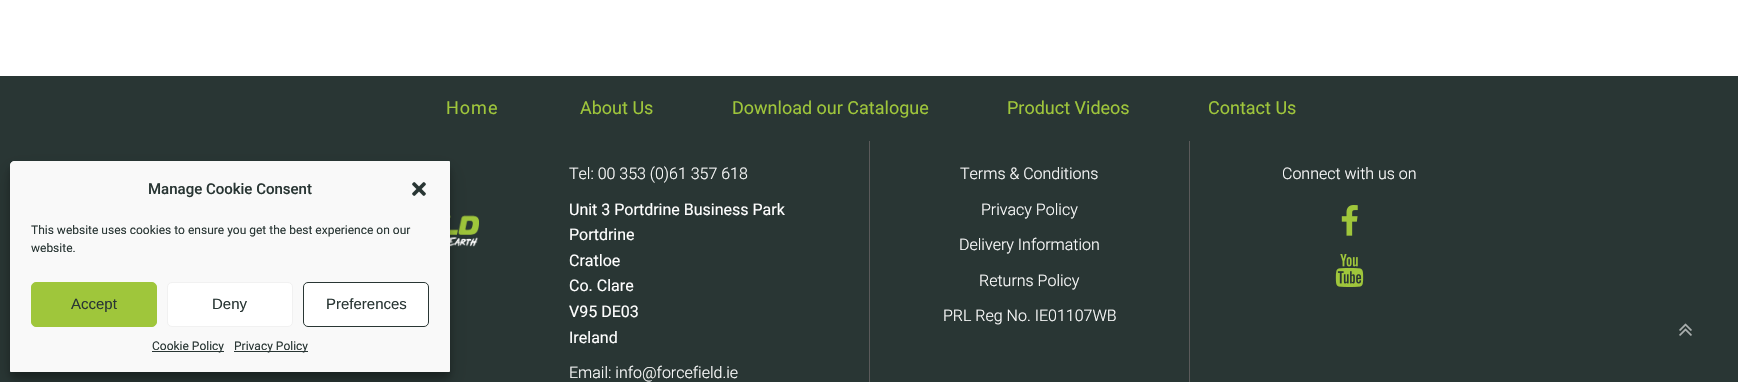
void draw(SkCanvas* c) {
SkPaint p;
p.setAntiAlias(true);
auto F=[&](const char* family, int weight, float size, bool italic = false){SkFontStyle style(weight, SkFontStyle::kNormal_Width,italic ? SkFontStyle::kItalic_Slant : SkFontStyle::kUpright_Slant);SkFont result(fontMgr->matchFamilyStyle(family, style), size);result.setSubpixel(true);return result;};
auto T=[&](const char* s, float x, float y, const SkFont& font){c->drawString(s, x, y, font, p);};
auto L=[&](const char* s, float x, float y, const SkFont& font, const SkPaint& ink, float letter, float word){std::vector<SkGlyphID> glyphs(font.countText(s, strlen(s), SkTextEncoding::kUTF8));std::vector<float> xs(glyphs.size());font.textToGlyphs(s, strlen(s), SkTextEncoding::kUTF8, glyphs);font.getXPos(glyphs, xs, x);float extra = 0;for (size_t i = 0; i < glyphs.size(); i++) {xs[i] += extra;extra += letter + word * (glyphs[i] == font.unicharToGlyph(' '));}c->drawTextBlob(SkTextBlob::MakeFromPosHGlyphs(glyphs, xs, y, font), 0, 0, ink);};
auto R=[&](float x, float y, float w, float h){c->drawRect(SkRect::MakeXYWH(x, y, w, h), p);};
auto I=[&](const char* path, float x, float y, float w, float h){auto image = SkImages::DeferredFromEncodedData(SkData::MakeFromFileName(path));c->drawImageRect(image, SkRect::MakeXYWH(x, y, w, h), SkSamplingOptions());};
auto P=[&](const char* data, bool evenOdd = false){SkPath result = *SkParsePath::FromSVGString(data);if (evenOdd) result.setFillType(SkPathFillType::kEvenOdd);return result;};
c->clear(0xffffffff);
p.setColor(0xff293634);
R(0,76,1738,306);
I("4.png",450,215,29,32);
p.setColor(0x3b000000);
p.setMaskFilter(SkMaskFilter::MakeBlur(kNormal_SkBlurStyle, 3));
c->drawRoundRect(SkRect::MakeXYWH(10,167,440,211),4,4,p);
p.setMaskFilter(nullptr);
p.setColor(0x30000000);
p.setMaskFilter(SkMaskFilter::MakeBlur(kNormal_SkBlurStyle, 10));
c->drawRoundRect(SkRect::MakeXYWH(10,171,440,211),4,4,p);
p.setMaskFilter(nullptr);
p.setColor(0xfff9f9f9);
c->drawPath(P("M14 161.5h435.5v210h-439v-206.5c0-2 1.5-3.5 3.5-3.5z"),p);
p.setStroke(true);
p.setStrokeWidth(1);
c->drawPath(P("M14 161.5h435.5v210h-439v-206.5c0-2 1.5-3.5 3.5-3.5z"),p);
auto f1 = F("Roboto",500,15);
p.setStroke(false);
p.setColor(0xff293634);
T("Manage Cookie Consent",148,194,f1);
I("1.png",412,182,14,14);
auto f2 = F("Roboto",400,12);
T("This website uses cookies to ensure you get the best experience on our",31,234,f2);
T("website.",31,252,f2);
p.setColor(0xff9fc63b);
c->drawRoundRect(SkRect::MakeXYWH(31.5,282.5,125,44),4.5,4.5,p);
p.setStroke(true);
c->drawRoundRect(SkRect::MakeXYWH(31.5,282.5,125,44),4.5,4.5,p);
auto f3 = F("Liberation Sans",400,15);
p.setStroke(false);
p.setColor(0xff293634);
T("Accept",71,309,f3);
p.setColor(0xffffffff);
c->drawRoundRect(SkRect::MakeXYWH(167.5,282.5,125,44),4.5,4.5,p);
p.setStroke(true);
p.setColor(0xfff1f1f1);
c->drawRoundRect(SkRect::MakeXYWH(167.5,282.5,125,44),4.5,4.5,p);
p.setStroke(false);
p.setColor(0xff293634);
T("Deny",212,309,f3);
p.setColor(0xffffffff);
c->drawRoundRect(SkRect::MakeXYWH(303.5,282.5,125,44),4.5,4.5,p);
p.setStroke(true);
p.setColor(0xff293634);
c->drawRoundRect(SkRect::MakeXYWH(303.5,282.5,125,44),4.5,4.5,p);
p.setStroke(false);
T("Preferences",326,309,f3);
R(152,351,72,1);
T("Cookie Policy",152,350,f2);
R(234,351,74,1);
T("Privacy Policy",234,350,f2);
auto f4 = F("Roboto",400,18);
p.setColor(0xff9fc63b);
L("Home",446,114,f4,p,1,0);
T("About Us",580,114,f4);
T("Download our Catalogue",732,114,f4);
T("Product Videos",1007,114,f4);
T("Contact Us",1208,114,f4);
auto f5 = F("Roboto",300,16);
p.setColor(0xffffffff);
T("Tel: 00 353 (0)61 357 618",569,179,f5);
auto f6 = F("Roboto",400,16);
T("Unit 3 Portdrine Business Park",569,215,f6);
T("Portdrine",569,240,f6);
T("Cratloe",569,266,f6);
T("Co. Clare",569,291,f6);
T("V95 DE03",569,317,f6);
T("Ireland",569,343,f6);
T("Email: info@forcefield.ie",569,378,f5);
p.setColor(0xff5a5a5a);
R(869,141,1,241);
p.setColor(0xffffffff);
T("Terms & Conditions",960,179,f5);
T("Privacy Policy",981,215,f5);
T("Delivery Information",959,250,f5);
T("Returns Policy",979,286,f5);
T("PRL Reg No. IE01107WB",943,321,f5);
p.setColor(0xff5a5a5a);
R(1189,141,1,241);
p.setColor(0xffffffff);
T("Connect with us on",1282,179,f5);
I("2.png",1341,205,17,31);
I("3.png",1335,254,29,33);
I("5.png",1679,323,13,13);
}
